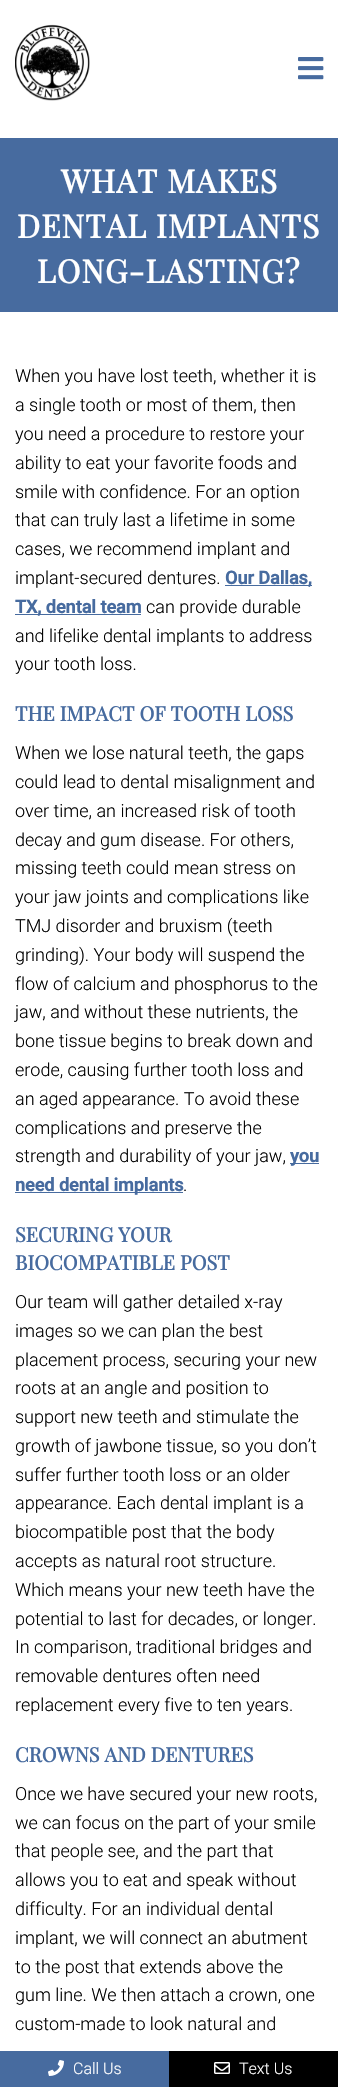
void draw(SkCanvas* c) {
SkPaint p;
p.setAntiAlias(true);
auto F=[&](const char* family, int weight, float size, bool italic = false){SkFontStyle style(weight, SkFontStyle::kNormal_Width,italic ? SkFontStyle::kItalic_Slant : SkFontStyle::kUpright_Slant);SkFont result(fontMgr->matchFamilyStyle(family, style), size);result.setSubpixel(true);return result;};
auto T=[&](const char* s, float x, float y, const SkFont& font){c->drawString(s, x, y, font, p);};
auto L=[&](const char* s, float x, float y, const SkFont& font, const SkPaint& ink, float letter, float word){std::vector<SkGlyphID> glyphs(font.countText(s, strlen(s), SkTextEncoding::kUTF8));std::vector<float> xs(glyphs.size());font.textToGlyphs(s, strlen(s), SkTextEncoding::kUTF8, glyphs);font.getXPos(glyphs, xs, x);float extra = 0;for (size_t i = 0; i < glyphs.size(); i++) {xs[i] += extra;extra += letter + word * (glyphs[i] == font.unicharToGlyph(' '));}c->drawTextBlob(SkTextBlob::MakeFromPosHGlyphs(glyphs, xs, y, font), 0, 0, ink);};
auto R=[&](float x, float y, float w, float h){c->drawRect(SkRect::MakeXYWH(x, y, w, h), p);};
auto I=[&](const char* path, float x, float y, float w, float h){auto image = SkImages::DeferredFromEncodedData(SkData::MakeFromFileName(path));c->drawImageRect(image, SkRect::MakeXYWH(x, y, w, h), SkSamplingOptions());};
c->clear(0xffffffff);
I("1.png",15,24,75,77);
I("2.png",298,57,26,23);
p.setColor(0xff476b9f);
R(0,138,338,174);
auto f1 = F("Playfair Display",700,32);
p.setColor(0xffffffff);
L("WHAT MAKES",61,193,f1,p,1,0);
L("DENTAL IMPLANTS",17,238,f1,p,1,0);
L("LONG-LASTING?",37,283,f1,p,1,0);
auto f2 = F("Roboto",300,18);
p.setColor(0xff000000);
T("When you have lost teeth, whether it is",15,382,f2);
T("a single tooth or most of them, then",15,411,f2);
T("you need a procedure to restore your",15,440,f2);
T("ability to eat your favorite foods and",15,469,f2);
T("smile with confidence. For an option",15,498,f2);
T("that can truly last a lifetime in some",15,526,f2);
T("cases, we recommend implant and",15,555,f2);
T("implant-secured dentures.",15,584,f2);
p.setColor(0xff476b9f);
R(225,585,87,1);
auto f3 = F("Roboto",700,18);
T("Our Dallas,",225,584,f3);
R(15,614,126,1);
T("TX, dental team",15,613,f3);
p.setColor(0xff000000);
T("can provide durable",146,613,f2);
T("and lifelike dental implants to address",15,642,f2);
T("your tooth loss.",15,670,f2);
auto f4 = F("Playfair Display",700,20);
p.setColor(0xff476b9f);
T("THE IMPACT OF TOOTH LOSS",15,721,f4);
p.setColor(0xff000000);
T("When we lose natural teeth, the gaps",15,759,f2);
T("could lead to dental misalignment and",15,788,f2);
T("over time, an increased risk of tooth",15,817,f2);
T("decay and gum disease. For others,",15,846,f2);
T("missing teeth could mean stress on",15,874,f2);
T("your jaw joints and complications like",15,903,f2);
T("TMJ disorder and bruxism (teeth",15,932,f2);
T("grinding). Your body will suspend the",15,961,f2);
T("flow of calcium and phosphorus to the",15,990,f2);
T("jaw, and without these nutrients, the",15,1018,f2);
T("bone tissue begins to break down and",15,1047,f2);
T("erode, causing further tooth loss and",15,1076,f2);
T("an aged appearance. To avoid these",15,1105,f2);
T("complications and preserve the",15,1134,f2);
T("strength and durability of your jaw,",15,1162,f2);
p.setColor(0xff476b9f);
R(290,1163,29,1);
T("you",290,1162,f3);
R(15,1192,168,1);
T("need dental implants",15,1191,f3);
p.setColor(0xff000000);
T(".",183,1191,f2);
p.setColor(0xff476b9f);
T("SECURING YOUR",15,1242,f4);
T("BIOCOMPATIBLE POST",15,1270,f4);
p.setColor(0xff000000);
T("Our team will gather detailed x-ray",15,1308,f2);
T("images so we can plan the best",15,1337,f2);
T("placement process, securing your new",15,1366,f2);
T("roots at an angle and position to",15,1394,f2);
T("support new teeth and stimulate the",15,1423,f2);
T("growth of jawbone tissue, so you don’t",15,1452,f2);
T("suffer further tooth loss or an older",15,1481,f2);
T("appearance. Each dental implant is a",15,1509,f2);
T("biocompatible post that the body",15,1538,f2);
T("accepts as natural root structure.",15,1567,f2);
T("Which means your new teeth have the",15,1596,f2);
T("potential to last for decades, or longer.",15,1625,f2);
T("In comparison, traditional bridges and",15,1653,f2);
T("removable dentures often need",15,1682,f2);
T("replacement every five to ten years.",15,1711,f2);
p.setColor(0xff476b9f);
T("CROWNS AND DENTURES",15,1762,f4);
p.setColor(0xff000000);
T("Once we have secured your new roots,",15,1800,f2);
T("we can focus on the part of your smile",15,1829,f2);
T("that people see, and the part that",15,1857,f2);
T("allows you to eat and speak without",15,1886,f2);
T("difficulty. For an individual dental",15,1915,f2);
T("implant, we will connect an abutment",15,1944,f2);
T("to the post that extends above the",15,1973,f2);
T("gum line. We then attach a crown, one",15,2001,f2);
T("custom-made to look natural and",15,2030,f2);
p.setColor(0xff476b9f);
R(0,2051,169,36);
I("3.png",48,2060,16,16);
auto f5 = F("Roboto",300,16);
p.setColor(0xffffffff);
T("Call Us",73,2074,f5);
p.setColor(0xff000000);
R(169,2051,169,36);
I("4.png",214,2062,16,12);
p.setColor(0xffffffff);
T("Text Us",239,2074,f5);
}
